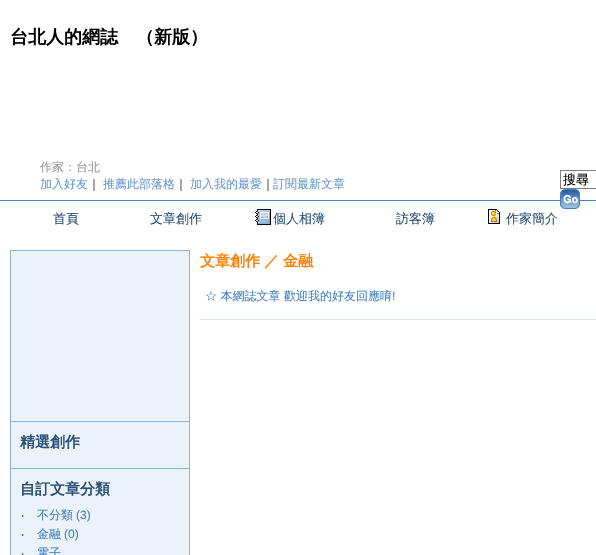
void draw(SkCanvas* c) {
SkPaint p;
p.setAntiAlias(true);
auto F=[&](const char* family, int weight, float size, bool italic = false){SkFontStyle style(weight, SkFontStyle::kNormal_Width,italic ? SkFontStyle::kItalic_Slant : SkFontStyle::kUpright_Slant);SkFont result(fontMgr->matchFamilyStyle(family, style), size);result.setSubpixel(true);return result;};
auto T=[&](const char* s, float x, float y, const SkFont& font){c->drawString(s, x, y, font, p);};
auto R=[&](float x, float y, float w, float h){c->drawRect(SkRect::MakeXYWH(x, y, w, h), p);};
auto I=[&](const char* path, float x, float y, float w, float h){auto image = SkImages::DeferredFromEncodedData(SkData::MakeFromFileName(path));c->drawImageRect(image, SkRect::MakeXYWH(x, y, w, h), SkSamplingOptions());};
c->clear(0xffffffff);
auto f1 = F("WenQuanYi Zen Hei",700,18);
p.setColor(0xff000000);
T("台北人的網誌",10,43,f1);
T("（新版）",136,43,f1);
auto f2 = F("WenQuanYi Zen Hei",500,12);
p.setColor(0xff999999);
T("作家：台北",40,171,f2);
p.setColor(0xff6698cc);
T("加入好友",40,188,f2);
p.setColor(0xff333333);
T("｜",88,188,f2);
p.setColor(0xff6698cc);
T("推薦此部落格",103,188,f2);
p.setColor(0xff333333);
T("｜",175,188,f2);
p.setColor(0xff6698cc);
T("加入我的最愛",190,188,f2);
p.setColor(0xff333333);
T("｜",262,188,f2);
p.setColor(0xff6698cc);
T("訂閱最新文章",273,188,f2);
p.setStroke(true);
p.setStrokeWidth(1);
p.setColor(0xff808080);
c->drawRect(SkRect::MakeXYWH(560.5,170.5,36,18),p);
auto f3 = F("WenQuanYi Zen Hei",500,13);
p.setStroke(false);
p.setColor(0xff000000);
T("搜尋",563,184,f3);
p.setColor(0xff4180c0);
R(0,200,596,1);
I("1.png",560,189,20,20);
p.setColor(0xff274d74);
T("首頁",53,223,f3);
T("文章創作",150,223,f3);
I("2.png",255,209,16,16);
T("個人相簿",273,223,f3);
T("訪客簿",396,223,f3);
I("3.png",488,209,12,15);
T("作家簡介",506,223,f3);
auto f4 = F("WenQuanYi Zen Hei",700,15);
p.setColor(0xffff7e00);
T("文章創作",200,266,f4);
T("／",264,266,f4);
T("金融",283,266,f4);
p.setColor(0xff4180c0);
T("☆ 本網誌文章",205,300,f2);
T("歡迎我的好友回應唷",284,300,f2);
auto f5 = F("Liberation Sans",400,12);
T("!",392,300,f5);
p.setColor(0xffd8e5f2);
R(200,319,396,1);
p.setColor(0xff8db3d9);
R(10,250,180,305);
p.setColor(0xffebf2f8);
R(11,251,178,170);
R(11,422,178,46);
p.setColor(0xff274d74);
T("精選創作",20,447,f4);
p.setColor(0xffebf2f8);
R(11,469,178,86);
p.setColor(0xff274d74);
T("自訂文章分類",20,494,f4);
auto f6 = F("Noto Sans",400,12);
p.setColor(0xff333333);
T("‧",21,519,f6);
p.setColor(0xff4180c0);
T("不分類",37,519,f2);
T("(3)",76,519,f5);
p.setColor(0xff333333);
T("‧",21,538,f6);
p.setColor(0xff4180c0);
T("金融",37,538,f2);
T("(0)",64,538,f5);
p.setColor(0xff333333);
T("‧",21,557,f6);
p.setColor(0xff4180c0);
T("電子",37,557,f2);
}
